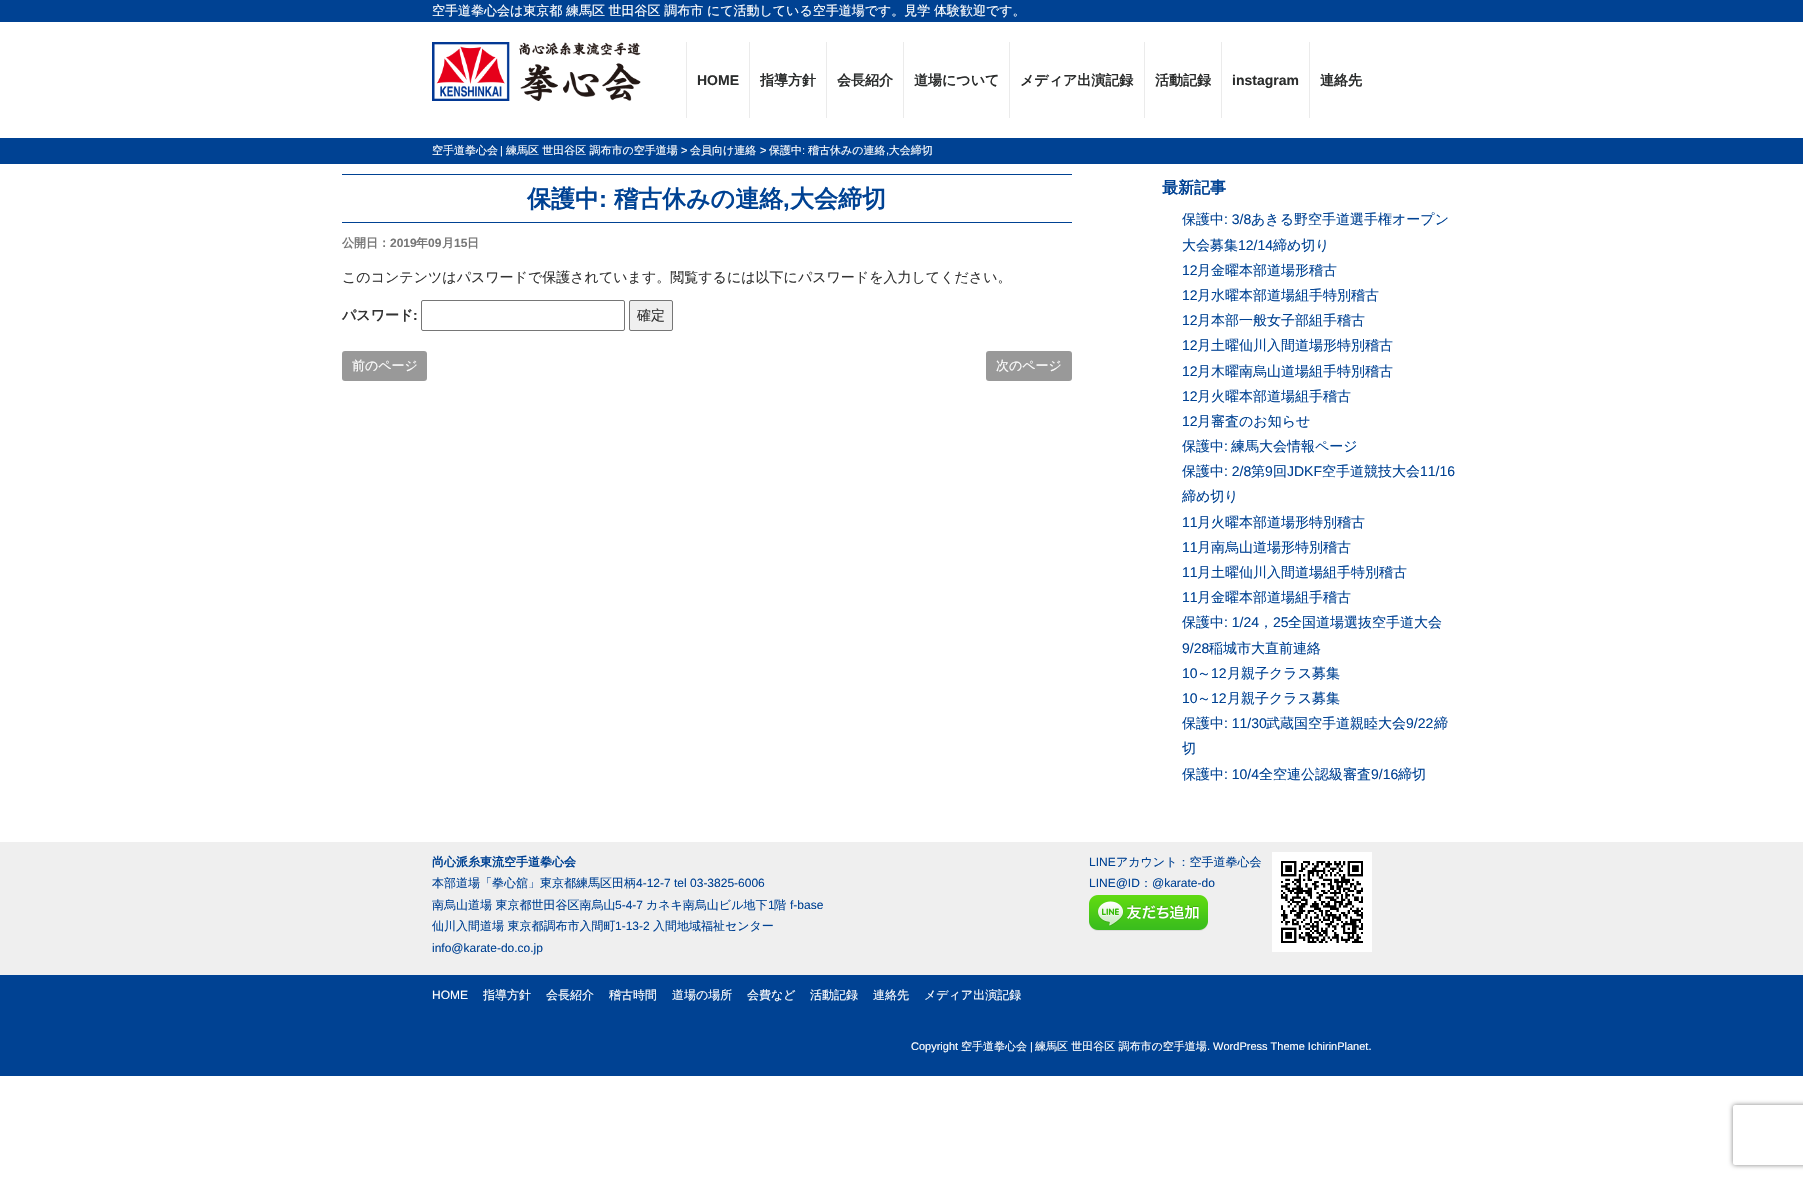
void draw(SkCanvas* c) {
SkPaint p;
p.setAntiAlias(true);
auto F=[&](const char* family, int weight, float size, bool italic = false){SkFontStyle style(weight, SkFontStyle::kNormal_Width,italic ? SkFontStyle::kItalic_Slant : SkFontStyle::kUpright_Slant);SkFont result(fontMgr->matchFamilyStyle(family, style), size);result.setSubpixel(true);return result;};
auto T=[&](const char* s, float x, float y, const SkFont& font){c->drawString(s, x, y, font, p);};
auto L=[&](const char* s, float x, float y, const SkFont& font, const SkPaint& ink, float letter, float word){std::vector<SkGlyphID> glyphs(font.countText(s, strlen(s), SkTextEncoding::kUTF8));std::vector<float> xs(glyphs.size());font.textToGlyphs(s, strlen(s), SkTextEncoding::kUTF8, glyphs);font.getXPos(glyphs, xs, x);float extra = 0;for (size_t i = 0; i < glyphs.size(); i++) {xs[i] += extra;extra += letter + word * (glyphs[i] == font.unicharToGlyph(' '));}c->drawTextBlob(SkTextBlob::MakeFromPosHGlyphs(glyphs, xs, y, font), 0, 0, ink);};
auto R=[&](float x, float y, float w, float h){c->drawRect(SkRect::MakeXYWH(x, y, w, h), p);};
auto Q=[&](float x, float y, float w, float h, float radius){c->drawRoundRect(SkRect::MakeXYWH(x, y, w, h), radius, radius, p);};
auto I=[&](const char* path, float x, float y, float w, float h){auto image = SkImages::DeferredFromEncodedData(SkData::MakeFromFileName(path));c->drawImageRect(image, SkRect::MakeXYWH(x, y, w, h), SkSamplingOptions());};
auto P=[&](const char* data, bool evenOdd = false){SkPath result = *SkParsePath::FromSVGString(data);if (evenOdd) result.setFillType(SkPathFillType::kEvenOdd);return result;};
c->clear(0xffffffff);
p.setColor(0xff004293);
R(0,0,1803,22);
auto f1 = F("WenQuanYi Zen Hei",500,13);
p.setColor(0xffffffff);
L("空手道拳心会は東京都 練馬区 世田谷区 調布市 にて活動している空手道場です。見学 体験歓迎です。",432,15,f1,p,0,-.25);
I("1.png",432,42,209,59);
p.setColor(0xffebebeb);
R(686,42,1,76);
auto f2 = F("Liberation Sans",700,14);
p.setColor(0xff2b2d2d);
T("HOME",697,85,f2);
p.setColor(0xffebebeb);
R(749,42,1,76);
auto f3 = F("WenQuanYi Zen Hei",700,14);
p.setColor(0xff2b2d2d);
T("指導方針",760,85,f3);
p.setColor(0xffebebeb);
R(826,42,1,76);
p.setColor(0xff2b2d2d);
T("会長紹介",837,85,f3);
p.setColor(0xffebebeb);
R(903,42,1,76);
p.setColor(0xff2b2d2d);
T("道場について",914,85,f3);
p.setColor(0xffebebeb);
R(1009,42,1,76);
p.setColor(0xff2b2d2d);
T("メディア出演記録",1020,85,f3);
p.setColor(0xffebebeb);
R(1144,42,1,76);
p.setColor(0xff2b2d2d);
T("活動記録",1155,85,f3);
p.setColor(0xffebebeb);
R(1221,42,1,76);
p.setColor(0xff2b2d2d);
T("instagram",1232,85,f2);
p.setColor(0xffebebeb);
R(1309,42,1,76);
p.setColor(0xff2b2d2d);
T("連絡先",1320,85,f3);
p.setColor(0xff004293);
R(0,138,1803,26);
auto f4 = F("WenQuanYi Zen Hei",500,11);
p.setColor(0xffffffff);
T("空手道拳心会",432,154,f4);
auto f5 = F("Liberation Sans",400,11);
T("|",500,154,f5);
T("練馬区 世田谷区 調布市の空手道場",506,154,f4);
T(">",681,154,f5);
T("会員向け連絡",690,154,f4);
T(">",760,154,f5);
T("保護中",769,154,f4);
T(":",802,154,f5);
T("稽古休みの連絡 大会締切",808,154,f4);
T(",",886,154,f5);
p.setColor(0xff004293);
R(342,174,730,1);
R(342,222,730,1);
auto f6 = F("WenQuanYi Zen Hei",700,24);
T("保護中",527,207,f6);
auto f7 = F("Liberation Sans",700,24);
T(":",599,207,f7);
T("稽古休みの連絡",614,207,f6);
T(",",783,207,f7);
T("大会締切",790,207,f6);
auto f8 = F("WenQuanYi Zen Hei",700,12);
p.setColor(0xff787878);
T("公開日：",342,247,f8);
auto f9 = F("Liberation Sans",700,12);
T("2019",390,247,f9);
T("年",416,247,f8);
T("09",428,247,f9);
T("月",442,247,f8);
T("15",454,247,f9);
T("日",467,247,f8);
auto f10 = F("WenQuanYi Zen Hei",500,14);
p.setColor(0xff333333);
T("このコンテンツはパスワードで保護されています。閲覧するには以下にパスワードを入力してください。",342,282,f10);
T("パスワード",342,320,f3);
T(":",413,320,f2);
p.setStroke(true);
p.setStrokeWidth(1);
p.setColor(0xff767676);
c->drawRoundRect(SkRect::MakeXYWH(421.5,300.5,203,30),1.5,1.5,p);
p.setStroke(false);
p.setColor(0xffefefef);
c->drawRoundRect(SkRect::MakeXYWH(629.5,300.5,43,30),1.5,1.5,p);
p.setStroke(true);
p.setColor(0xff767676);
c->drawRoundRect(SkRect::MakeXYWH(629.5,300.5,43,30),1.5,1.5,p);
p.setStroke(false);
p.setColor(0xff333333);
T("確定",637,320,f10);
p.setColor(0xff999999);
Q(342,351,85,30,3);
p.setColor(0xffffffff);
T("前のページ",352,370,f1);
p.setColor(0xff999999);
Q(986,351,86,30,3);
p.setColor(0xffffffff);
T("次のページ",996,370,f1);
auto f11 = F("WenQuanYi Zen Hei",700,16);
p.setColor(0xff004293);
T("最新記事",1162,193,f11);
T("保護中",1182,224,f10);
auto f12 = F("Liberation Sans",400,14);
T(": 3/8",1224,224,f12);
T("あきる野空手道選手権オープン",1251,224,f10);
T("大会募集",1182,250,f10);
T("12/14",1238,250,f12);
T("締め切り",1273,250,f10);
T("12",1182,275,f12);
T("月金曜本部道場形稽古",1197,275,f10);
T("12",1182,300,f12);
T("月水曜本部道場組手特別稽古",1197,300,f10);
T("12",1182,325,f12);
T("月本部一般女子部組手稽古",1197,325,f10);
T("12",1182,350,f12);
T("月土曜仙川入間道場形特別稽古",1197,350,f10);
T("12",1182,376,f12);
T("月木曜南烏山道場組手特別稽古",1197,376,f10);
T("12",1182,401,f12);
T("月火曜本部道場組手稽古",1197,401,f10);
T("12",1182,426,f12);
T("月審査のお知らせ",1197,426,f10);
T("保護中",1182,451,f10);
T(":",1224,451,f12);
T("練馬大会情報ページ",1231,451,f10);
T("保護中",1182,476,f10);
T(": 2/8",1224,476,f12);
T("第",1251,476,f10);
T("9",1265,476,f12);
T("回",1273,476,f10);
T("JDKF",1287,476,f12);
T("空手道競技大会",1322,476,f10);
T("11/16",1420,476,f12);
T("締め切り",1182,501,f10);
T("11",1182,527,f12);
T("月火曜本部道場形特別稽古",1197,527,f10);
T("11",1182,552,f12);
T("月南烏山道場形特別稽古",1197,552,f10);
T("11",1182,577,f12);
T("月土曜仙川入間道場組手特別稽古",1197,577,f10);
T("11",1182,602,f12);
T("月金曜本部道場組手稽古",1197,602,f10);
T("保護中",1182,627,f10);
T(": 1/24",1224,627,f12);
T("，",1259,627,f10);
T("25",1273,627,f12);
T("全国道場選抜空手道大会",1288,627,f10);
T("9/28",1182,653,f12);
T("稲城市大直前連絡",1209,653,f10);
T("10",1182,678,f12);
T("～",1197,678,f10);
T("12",1211,678,f12);
T("月親子クラス募集",1227,678,f10);
T("10",1182,703,f12);
T("～",1197,703,f10);
T("12",1211,703,f12);
T("月親子クラス募集",1227,703,f10);
T("保護中",1182,728,f10);
T(": 11/30",1224,728,f12);
T("武蔵国空手道親睦大会",1266,728,f10);
T("9/22",1406,728,f12);
T("締",1434,728,f10);
T("切",1182,753,f10);
T("保護中",1182,779,f10);
T(": 10/4",1224,779,f12);
T("全空連公認級審査",1259,779,f10);
T("9/16",1371,779,f12);
T("締切",1398,779,f10);
p.setColor(0xffefefef);
R(0,842,1803,133);
p.setColor(0xff004293);
T("尚心派糸東流空手道拳心会",432,866,f8);
auto f13 = F("WenQuanYi Zen Hei",500,12);
T("本部道場「拳心舘」東京都練馬区田柄",432,887,f13);
auto f14 = F("Liberation Sans",400,12);
T("4-12-7 tel 03-3825-6006",636,887,f14);
T("南烏山道場 東京都世田谷区南烏山",432,909,f13);
T("5-4-7",615,909,f14);
T("カネキ南烏山ビル地下",646,909,f13);
T("1",768,909,f14);
T("階",774,909,f13);
T("f-base",790,909,f14);
T("仙川入間道場 東京都調布市入間町",432,930,f13);
T("1-13-2",615,930,f14);
T("入間地域福祉センター",653,930,f13);
T("info@karate-do.co.jp",432,952,f14);
T("LINE",1089,866,f14);
T("アカウント：空手道拳心会",1116,866,f13);
T("LINE@ID",1089,887,f14);
T("：",1140,887,f13);
T("@karate-do",1152,887,f14);
I("2.png",1089,895,119,36);
I("3.png",1272,852,100,100);
R(0,975,1803,101);
p.setColor(0xffffffff);
T("HOME",432,999,f14);
T("指導方針",483,999,f13);
T("会長紹介",546,999,f13);
T("稽古時間",609,999,f13);
T("道場の場所",672,999,f13);
T("会費など",747,999,f13);
T("活動記録",810,999,f13);
T("連絡先",873,999,f13);
T("メディア出演記録",924,999,f13);
T("Copyright",911,1050,f5);
T("空手道拳心会",961,1050,f4);
T("|",1030,1050,f5);
T("練馬区 世田谷区 調布市の空手道場",1035,1050,f4);
T(". WordPress Theme IchirinPlanet.",1207,1050,f5);
c->save();
c->clipPath(P("M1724 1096h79v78h-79zm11 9h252c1 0 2 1 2 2v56c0 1-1 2-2 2h-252c-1 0-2-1-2-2v-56c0-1 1-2 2-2z",true),true);
p.setColor(0xff808080);
p.setMaskFilter(SkMaskFilter::MakeBlur(kNormal_SkBlurStyle, 2.5));
c->drawRoundRect(SkRect::MakeXYWH(1733,1105,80,60),2,2,p);
p.setMaskFilter(nullptr);
c->restore();
}
